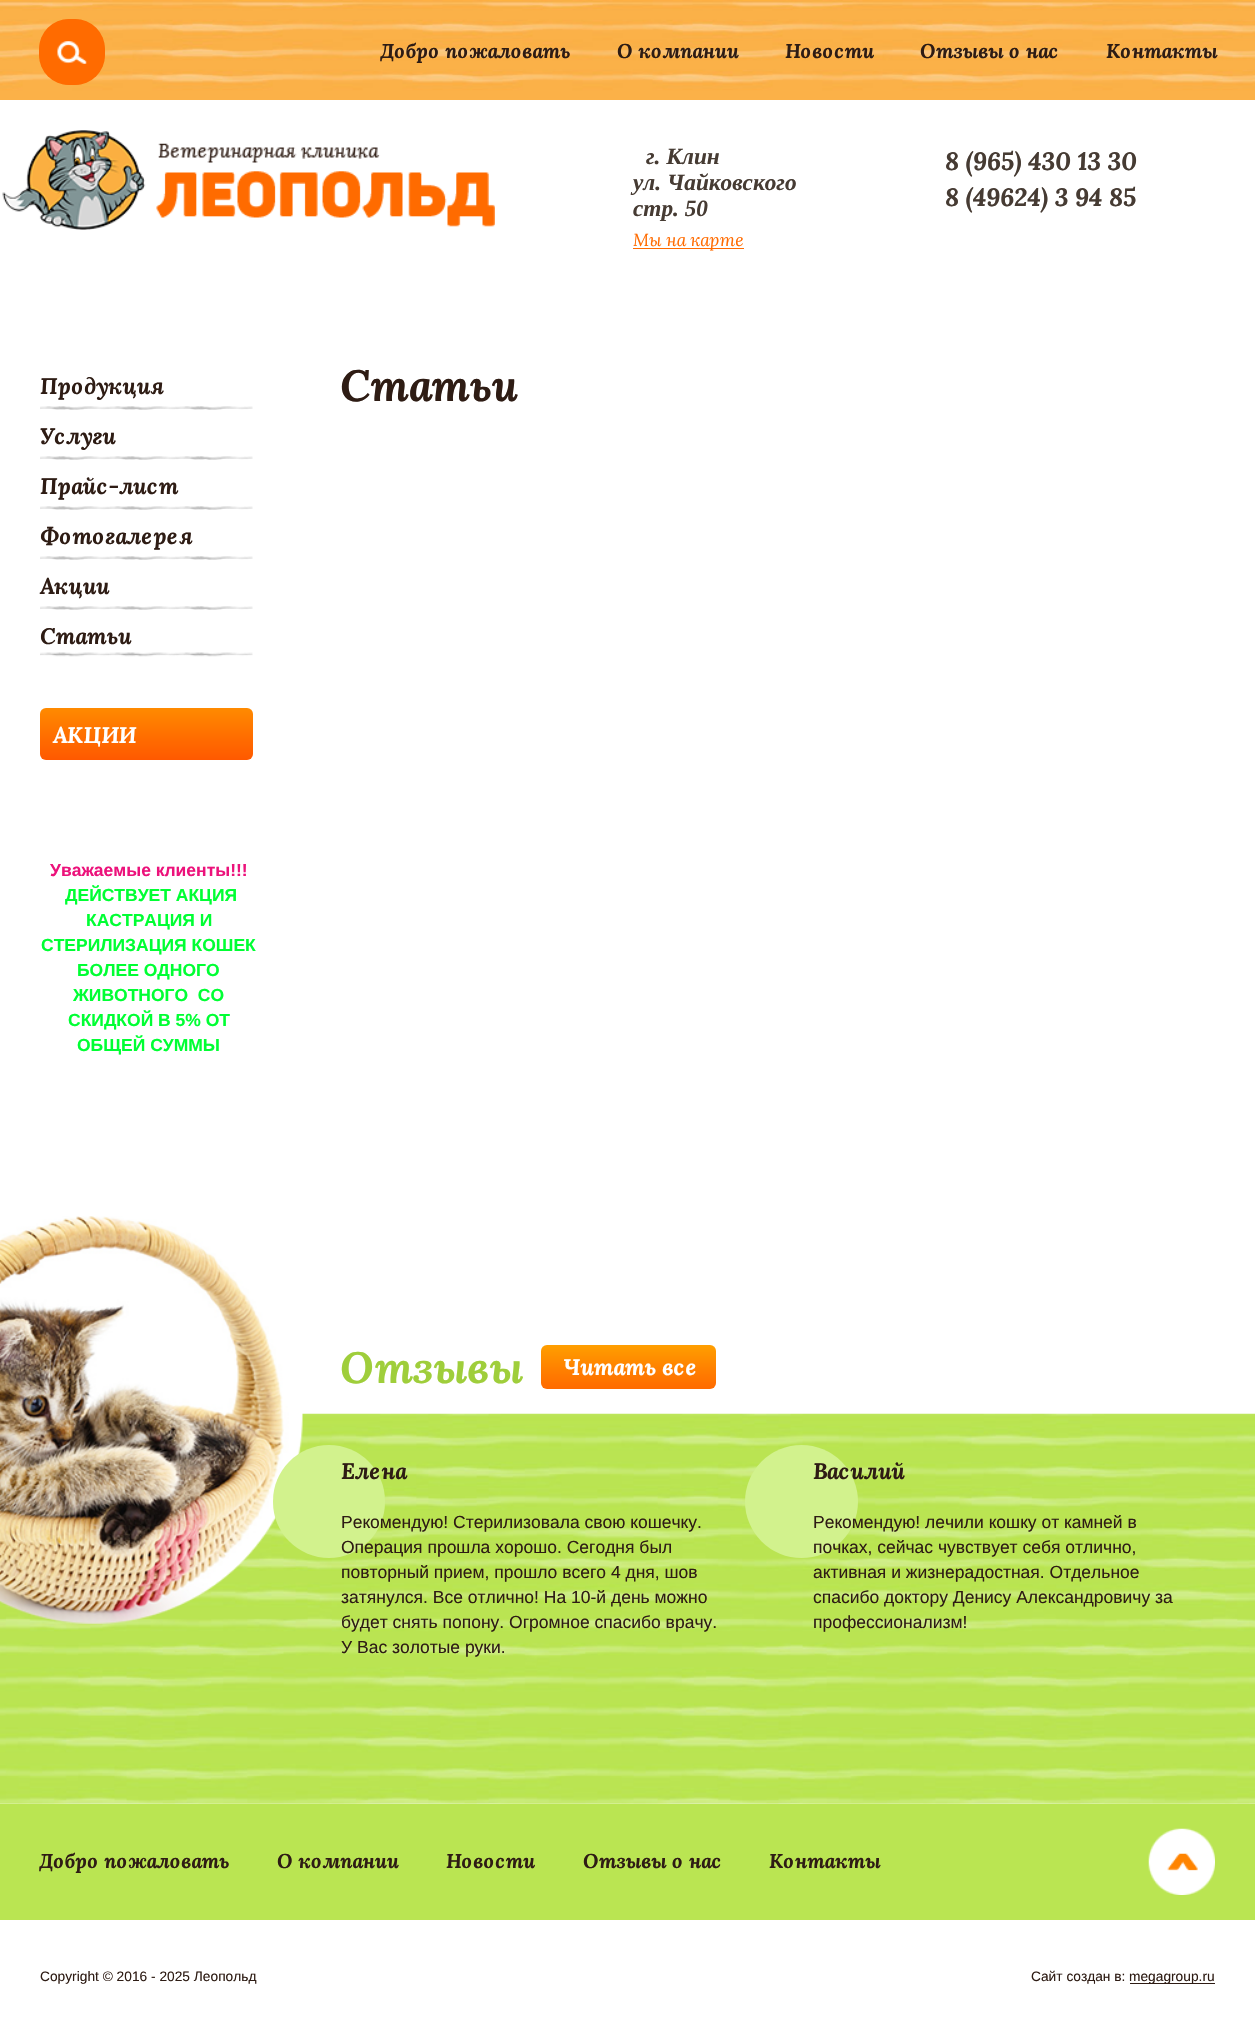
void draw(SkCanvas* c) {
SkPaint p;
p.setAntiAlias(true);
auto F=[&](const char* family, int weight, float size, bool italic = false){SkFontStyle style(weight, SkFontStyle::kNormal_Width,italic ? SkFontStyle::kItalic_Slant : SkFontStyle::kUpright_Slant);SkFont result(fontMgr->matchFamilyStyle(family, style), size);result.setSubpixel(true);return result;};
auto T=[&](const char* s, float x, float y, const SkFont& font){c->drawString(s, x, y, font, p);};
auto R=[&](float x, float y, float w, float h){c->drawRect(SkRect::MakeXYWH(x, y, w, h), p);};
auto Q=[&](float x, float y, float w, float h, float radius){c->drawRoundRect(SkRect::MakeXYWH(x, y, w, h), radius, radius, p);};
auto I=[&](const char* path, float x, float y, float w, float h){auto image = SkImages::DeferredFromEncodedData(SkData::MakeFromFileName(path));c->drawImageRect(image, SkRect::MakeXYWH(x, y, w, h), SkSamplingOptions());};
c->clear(0xffffffff);
I("1.png",0,0,1255,100);
p.setColor(0xffff6b00);
Q(39,19,66,66,30);
c->drawCircle(72,52,33,p);
I("2.png",57,41,30,23);
auto f1 = F("Lora",700,20,true);
p.setColor(0xff2e1c14);
T("Добро пожаловать",380,58,f1);
T("О компании",617,58,f1);
T("Новости",785,58,f1);
T("Отзывы о нас",920,58,f1);
T("Контакты",1106,58,f1);
I("3.png",2,130,493,100);
auto f2 = F("Liberation Serif",700,23.25,true);
p.setColor(0xff463b33);
T("г. Клин",646,164,f2);
T("ул. Чайковского",633,190,f2);
T("стр. 50",633,216,f2);
p.setColor(0xffff6b00);
R(633,248,111,1);
auto f3 = F("Lora",400,17.5,true);
T("Мы на карте",633,246,f3);
auto f4 = F("Lora",700,25,true);
p.setColor(0xff463b33);
T("8 (965) 430 13 30",945,170,f4);
T("8 (49624) 3 94 85",945,206,f4);
auto f5 = F("Lora",700,22.5,true);
p.setColor(0xff2e1c14);
T("Продукция",40,394,f5);
I("4.png",40,406,213,4);
T("Услуги",40,444,f5);
I("4.png",40,456,213,4);
T("Прайс-лист",40,494,f5);
I("4.png",40,506,213,4);
T("Фотогалерея",40,544,f5);
I("4.png",40,556,213,4);
T("Акции",40,594,f5);
I("5.png",40,606,213,51);
T("Статьи",40,644,f5);
{
const SkColor colors[] = {0xffff8b00,0xffff7000,0xffff5900};
const float stops[] = {0,.5,1};
const SkPoint ends[] = {{146,708}, {146,760}};
p.setShader(SkGradientShader::MakeLinear(ends, colors, stops, 3, SkTileMode::kClamp));
p.setAlpha(255);
}
Q(40,708,213,52,6);
p.setShader(nullptr);
p.setColor(0xffffffff);
T("АКЦИИ",53,743,f5);
auto f6 = F("Liberation Sans",700,17.5);
p.setColor(0xffec127b);
T("Уважаемые клиенты!!!",50,876,f6);
p.setColor(0xff00ff33);
T("ДЕЙСТВУЕТ АКЦИЯ",65,901,f6);
T("КАСТРАЦИЯ И",86,926,f6);
T("СТЕРИЛИЗАЦИЯ КОШЕК",41,951,f6);
T("БОЛЕЕ ОДНОГО",77,976,f6);
T("ЖИВОТНОГО  СО",73,1001,f6);
T("СКИДКОЙ В 5% ОТ",68,1026,f6);
T("ОБЩЕЙ СУММЫ",77,1051,f6);
auto f7 = F("Lora",700,43.75,true);
p.setColor(0xff2e1c14);
T("Статьи",340,401,f7);
I("6.png",0,1413,1255,391);
I("7.png",0,1216,303,408);
p.setColor(0xff9fce3b);
T("Отзывы",340,1383,f7);
{
const SkColor colors[] = {0xffff9f00,0xffff8300,0xffff6a00};
const float stops[] = {0,.5,1};
const SkPoint ends[] = {{629,1345}, {629,1389}};
p.setShader(SkGradientShader::MakeLinear(ends, colors, stops, 3, SkTileMode::kClamp));
p.setAlpha(255);
}
Q(541,1345,175,44,6);
p.setShader(nullptr);
p.setColor(0xffffffff);
T("Читать все",563,1375,f5);
p.setColor(0xffd2f28d);
Q(273,1445,112,113,56);
p.setColor(0xff2e1c14);
T("Елена",341,1479,f5);
auto f8 = F("Liberation Sans",400,17.5);
T("Рекомендую! Стерилизовала свою кошечку.",341,1528,f8);
T("Операция прошла хорошо. Сегодня был",341,1553,f8);
T("повторный прием, прошло всего 4 дня, шов",341,1578,f8);
T("затянулся. Все отлично! На 10-й день можно",341,1603,f8);
T("будет снять попону. Огромное спасибо врачу.",341,1628,f8);
T("У Вас золотые руки.",341,1653,f8);
p.setColor(0xffd2f28d);
c->drawCircle(801.5,1501.5,56.5,p);
p.setColor(0xff2e1c14);
T("Василий",813,1479,f5);
T("Рекомендую! лечили кошку от камней в",813,1528,f8);
T("почках, сейчас чувствует себя отлично,",813,1553,f8);
T("активная и жизнерадостная. Отдельное",813,1578,f8);
T("спасибо доктору Денису Александровичу за",813,1603,f8);
T("профессионализм!",813,1628,f8);
p.setColor(0xffbae552);
R(0,1804,1255,116);
p.setColor(0xff2e1c14);
T("Добро пожаловать",39,1868,f1);
T("О компании",277,1868,f1);
T("Новости",446,1868,f1);
T("Отзывы о нас",583,1868,f1);
T("Контакты",769,1868,f1);
I("8.png",1148,1828,67,67);
auto f9 = F("Liberation Sans",400,13.75);
T("Copyright © 2016 - 2025 Леопольд",40,1981,f9);
T("Сайт создан в:",1031,1981,f9);
R(1130,1983,85,1);
T("megagroup.ru",1129,1981,f9);
}
